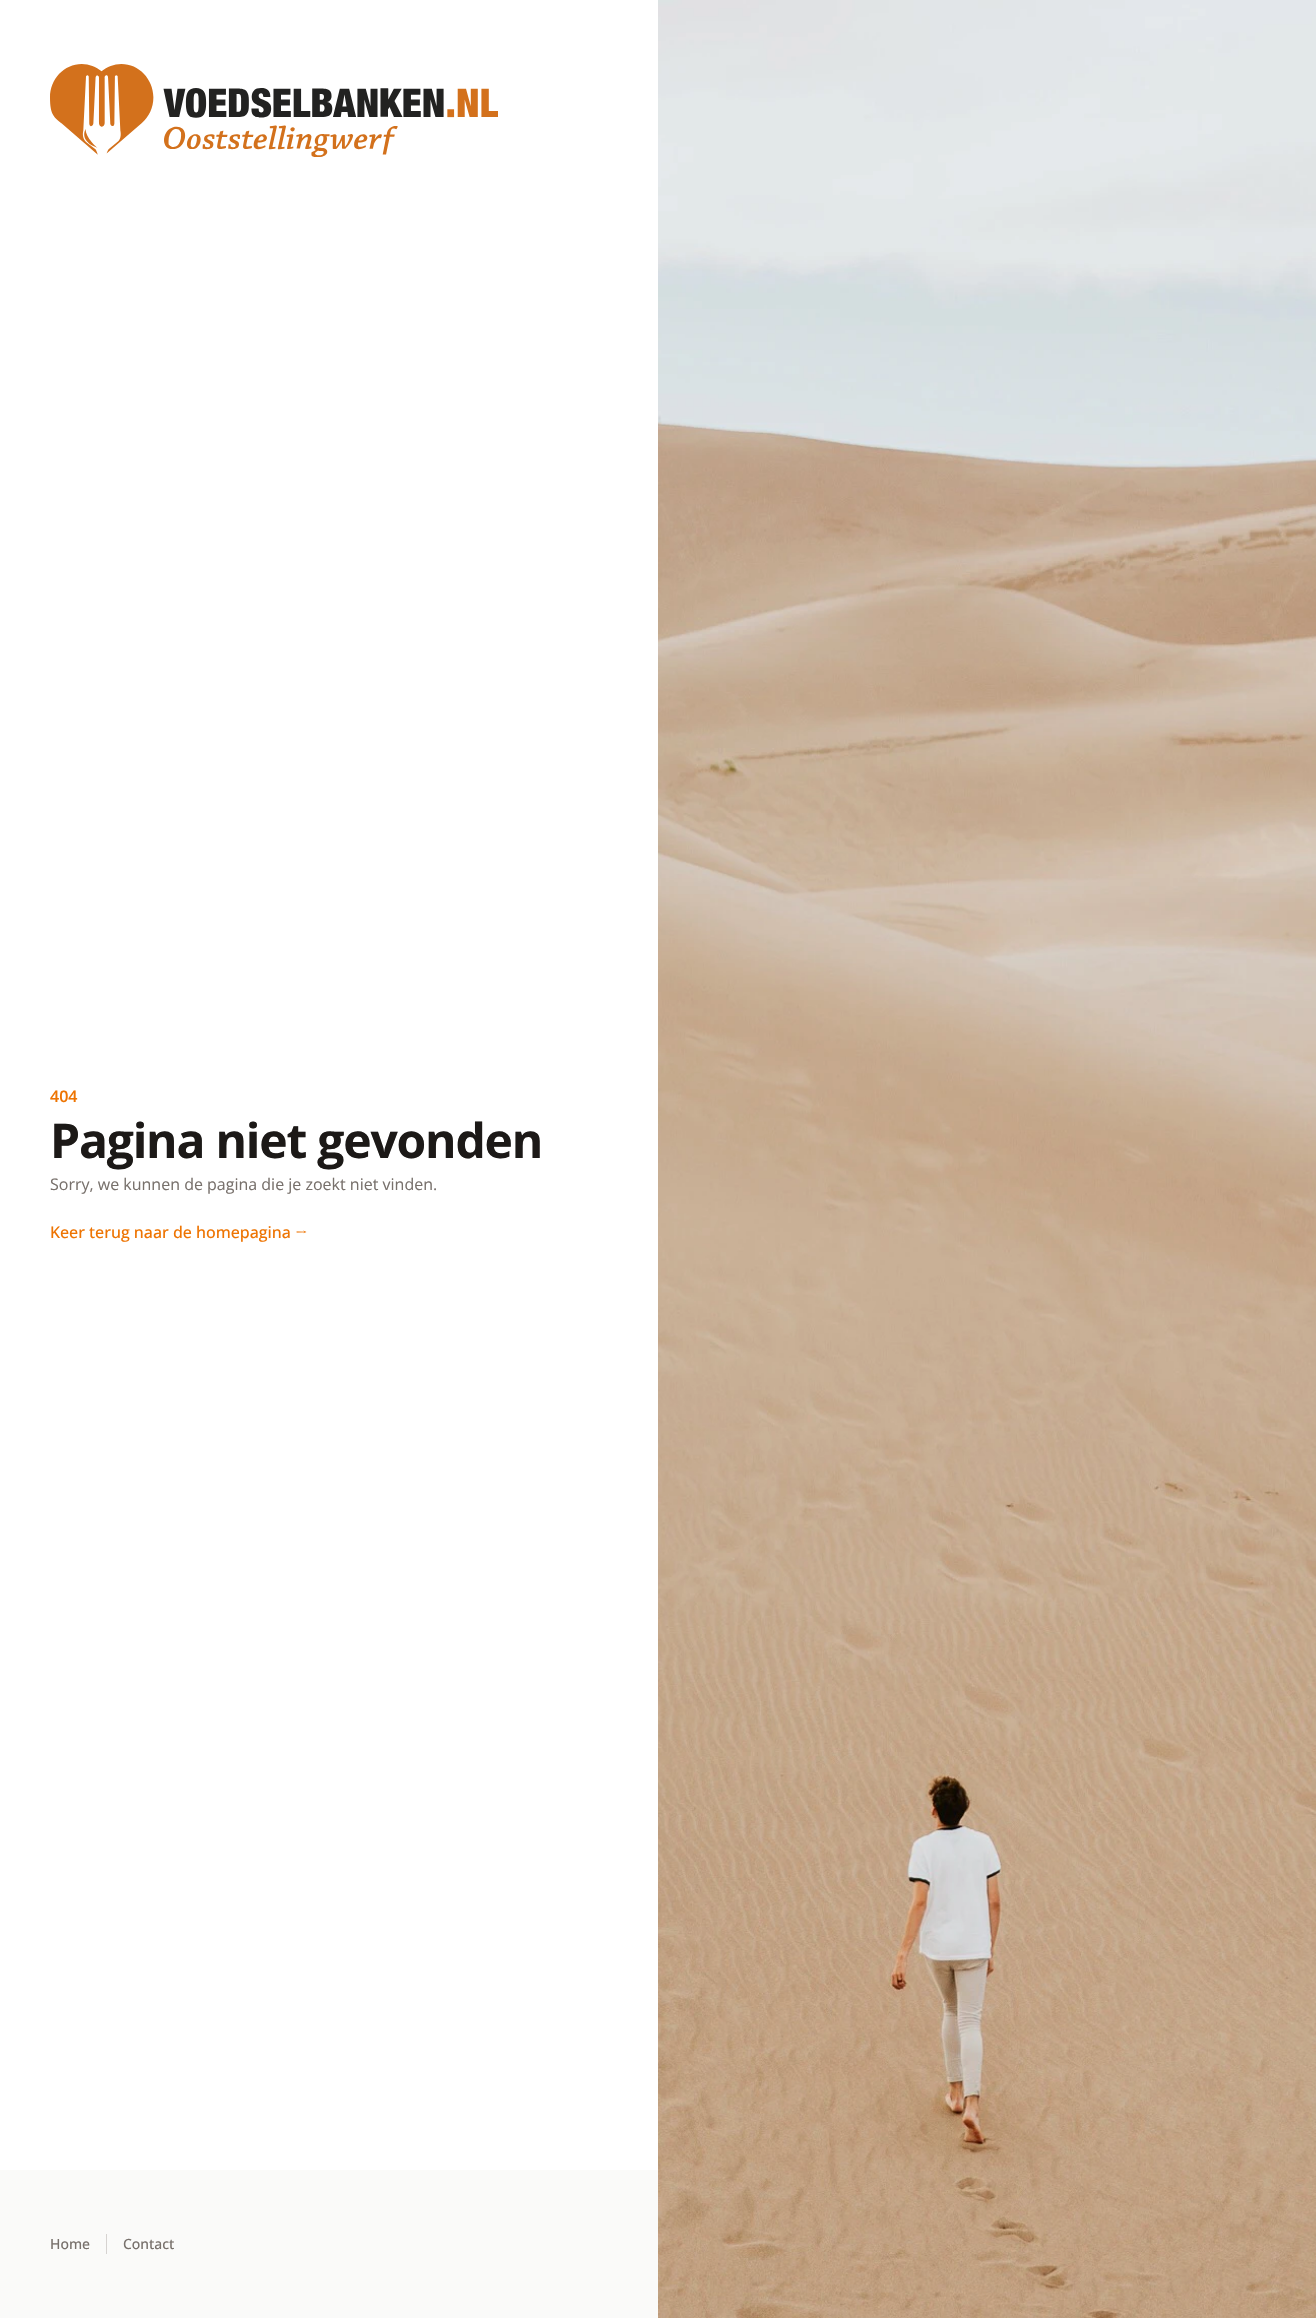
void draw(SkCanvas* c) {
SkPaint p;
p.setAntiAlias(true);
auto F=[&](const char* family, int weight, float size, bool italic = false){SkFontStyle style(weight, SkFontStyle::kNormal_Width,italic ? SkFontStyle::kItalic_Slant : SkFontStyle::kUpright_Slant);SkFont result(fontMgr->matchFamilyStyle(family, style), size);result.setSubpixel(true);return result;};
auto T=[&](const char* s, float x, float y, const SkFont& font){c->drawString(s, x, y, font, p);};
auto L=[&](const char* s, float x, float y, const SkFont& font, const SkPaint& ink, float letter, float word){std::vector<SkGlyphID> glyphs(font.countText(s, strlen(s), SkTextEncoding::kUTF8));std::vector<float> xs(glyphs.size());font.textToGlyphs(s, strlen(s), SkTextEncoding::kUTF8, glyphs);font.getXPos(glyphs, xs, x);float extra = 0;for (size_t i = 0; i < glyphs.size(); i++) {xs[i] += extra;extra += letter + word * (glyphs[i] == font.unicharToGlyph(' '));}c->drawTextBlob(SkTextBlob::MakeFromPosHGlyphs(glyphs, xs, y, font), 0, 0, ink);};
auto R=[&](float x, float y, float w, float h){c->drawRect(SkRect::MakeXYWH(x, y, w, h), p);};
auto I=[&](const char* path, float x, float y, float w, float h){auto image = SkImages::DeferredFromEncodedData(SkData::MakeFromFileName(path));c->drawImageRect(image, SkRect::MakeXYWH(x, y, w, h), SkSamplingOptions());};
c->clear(0xffffffff);
I("1.png",50,64,448,93);
auto f1 = F("Open Sans",600,16);
p.setColor(0xffee7402);
T("404",50,1102,f1);
auto f2 = F("Open Sans",700,48);
p.setColor(0xff1c1917);
L("Pagina niet gevonden",50,1158,f2,p,-1.2,0);
auto f3 = F("Open Sans",400,16);
p.setColor(0xff78716c);
T("Sorry, we kunnen de pagina die je zoekt niet vinden.",50,1190,f3);
auto f4 = F("Open Sans",500,16);
p.setColor(0xffee7402);
T("Keer terug naar de homepagina",50,1238,f4);
auto f5 = F("Caladea",400,16);
T("→",295,1238,f5);
p.setColor(0xfffafaf9);
R(0,2170,658,148);
auto f6 = F("Open Sans",500,14);
p.setColor(0xff78716c);
T("Home",50,2249,f6);
p.setColor(0xffd6d3d1);
R(106,2234,1,20);
p.setColor(0xff78716c);
T("Contact",123,2249,f6);
I("2.png",658,0,658,2318);
}
